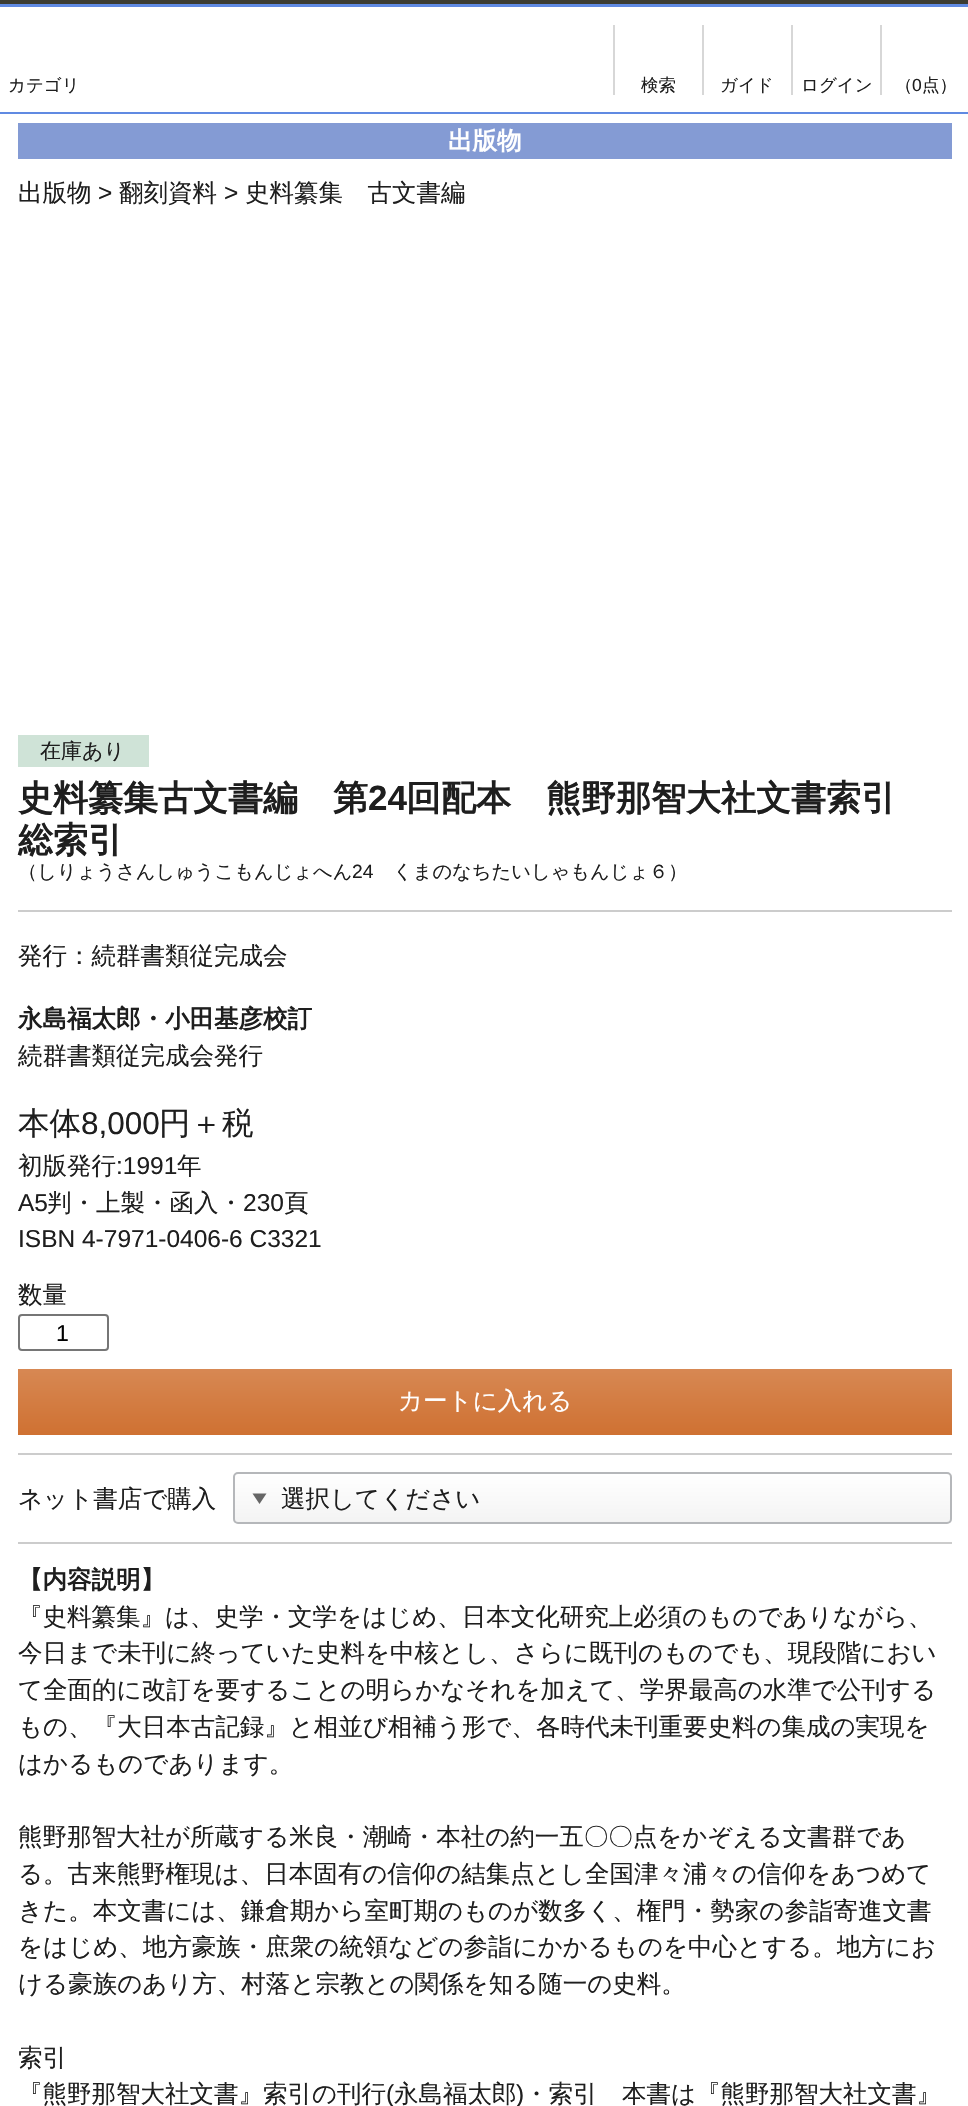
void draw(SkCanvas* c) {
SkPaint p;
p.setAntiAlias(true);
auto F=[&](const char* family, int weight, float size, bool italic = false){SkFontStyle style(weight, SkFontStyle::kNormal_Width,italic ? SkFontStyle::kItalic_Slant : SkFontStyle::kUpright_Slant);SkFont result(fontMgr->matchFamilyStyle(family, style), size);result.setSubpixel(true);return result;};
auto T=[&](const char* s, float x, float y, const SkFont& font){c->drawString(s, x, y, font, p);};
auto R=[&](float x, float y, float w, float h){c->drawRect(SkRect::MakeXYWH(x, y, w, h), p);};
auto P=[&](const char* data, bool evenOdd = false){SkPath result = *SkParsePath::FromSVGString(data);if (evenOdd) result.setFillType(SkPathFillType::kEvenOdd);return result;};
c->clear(0xffffffff);
p.setColor(0xff3c3c32);
R(0,0,968,4);
p.setColor(0xff608ae2);
R(0,112,968,2);
R(0,4,968,3);
p.setColor(0xffd7d7d7);
R(613,25,2,70);
auto f1 = F("WenQuanYi Zen Hei",500,17.5);
p.setColor(0xff1e1e1e);
T("カテゴリ",8,91,f1);
p.setColor(0xffd7d7d7);
R(702,25,2,70);
p.setColor(0xff1e1e1e);
T("検索",641,91,f1);
p.setColor(0xffd7d7d7);
R(791,25,2,70);
p.setColor(0xff1e1e1e);
T("ガイド",720,91,f1);
p.setColor(0xffd7d7d7);
R(880,25,2,70);
p.setColor(0xff1e1e1e);
T("ログイン",801,91,f1);
T("（",895,91,f1);
auto f2 = F("Liberation Sans",400,17.5);
T("0",912,91,f2);
T("点）",922,91,f1);
p.setColor(0xff849bd4);
R(18,123,934,36);
auto f3 = F("WenQuanYi Zen Hei",700,24.5);
p.setColor(0xffffffff);
T("出版物",448,149,f3);
auto f4 = F("WenQuanYi Zen Hei",500,24.5);
p.setColor(0xff1e1e1e);
T("出版物",18,201,f4);
auto f5 = F("Liberation Sans",400,24.5);
T(">",98,201,f5);
T("翻刻資料",119,201,f4);
T(">",224,201,f5);
T("史料纂集　古文書編",245,201,f4);
p.setColor(0xffcfe3d7);
R(18,735,131,32);
auto f6 = F("WenQuanYi Zen Hei",500,21);
p.setColor(0xff1e1e1e);
T("在庫あり",40,758,f6);
p.setColor(0xffcccccc);
R(18,910,934,2);
auto f7 = F("WenQuanYi Zen Hei",700,35);
p.setColor(0xff1e1e1e);
T("史料纂集古文書編　第",18,810,f7);
auto f8 = F("Liberation Sans",700,35);
T("24",368,810,f8);
T("回配本　熊野那智大社文書索引",406,810,f7);
T("総索引",18,852,f7);
auto f9 = F("WenQuanYi Zen Hei",500,19.25);
T("（しりょうさんしゅうこもんじょへん",18,878,f9);
auto f10 = F("Liberation Sans",400,19.25);
T("24",352,878,f10);
T("くまのなちたいしゃもんじょ６）",393,878,f9);
T("発行：続群書類従完成会",18,964,f4);
T("永島福太郎・小田基彦校訂",18,1027,f3);
c->save();
c->clipRect(SkRect::MakeXYWH(18,238,934,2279));
T("続群書類従完成会発行",18,1064,f4);
c->restore();
auto f11 = F("WenQuanYi Zen Hei",500,31.5);
T("本体",18,1134,f11);
auto f12 = F("Liberation Sans",400,31.5);
T("8,000",81,1134,f12);
T("円＋税",159,1134,f11);
T("初版発行",18,1174,f4);
T(":1991",116,1174,f5);
T("年",177,1174,f4);
T("A5",18,1211,f5);
T("判・上製・函入・",47,1211,f4);
T("230",243,1211,f5);
T("頁",284,1211,f4);
T("ISBN 4-7971-0406-6 C3321",18,1247,f5);
T("数量",18,1303,f4);
p.setStroke(true);
p.setStrokeWidth(2);
p.setColor(0xff767676);
c->drawRoundRect(SkRect::MakeXYWH(19,1315,89,35),3,3,p);
auto f13 = F("Liberation Sans",400,23);
p.setStroke(false);
p.setColor(0xff000000);
T("1",56,1341,f13);
{
const SkColor colors[] = {0xffd78853,0xffcf7132};
const float stops[] = {0,1};
const SkPoint ends[] = {{485,1369}, {485,1435}};
p.setShader(SkGradientShader::MakeLinear(ends, colors, stops, 2, SkTileMode::kClamp));
p.setAlpha(255);
}
R(18,1369,934,66);
p.setShader(nullptr);
p.setColor(0xffffffff);
T("カートに入れる",398,1409,f4);
p.setColor(0xffcccccc);
R(18,1453,934,2);
p.setColor(0xff1e1e1e);
T("ネット書店で購入",18,1507,f4);
c->save();
c->clipPath(P("M238 1472h709c3 0 5 2 5 5v42c0 3-2 5-5 5h-709c-3 0-5-2-5-5v-42c0-3 2-5 5-5z"),true);
{
const SkColor colors[] = {0xffffffff,0xfff3f3f3};
const float stops[] = {0,1};
const SkPoint ends[] = {{592,1474}, {592,1523}};
p.setShader(SkGradientShader::MakeLinear(ends, colors, stops, 2, SkTileMode::kClamp));
p.setAlpha(255);
}
R(233,1474,719,49);
c->restore();
p.setStroke(true);
p.setShader(nullptr);
p.setColor(0xffb5b7ba);
c->drawRoundRect(SkRect::MakeXYWH(234,1473,717,50),4,4,p);
p.setStroke(false);
p.setColor(0xff666666);
c->drawPath(P("M252.5 1493.5h14l-7 10.5z"),p);
p.setColor(0xff1e1e1e);
T("選択してください",281,1507,f4);
p.setColor(0xffcccccc);
R(18,1542,934,2);
p.setColor(0xff1e1e1e);
T("【内容説明】",18,1588,f3);
T("『史料纂集』は、史学・文学をはじめ、日本文化研究上必須のものでありながら、",18,1625,f4);
T("今日まで未刊に終っていた史料を中核とし、さらに既刊のものでも、現段階におい",18,1661,f4);
T("て全面的に改訂を要することの明らかなそれを加えて、学界最高の水準で公刊する",18,1698,f4);
T("もの、『大日本古記録』と相並び相補う形で、各時代未刊重要史料の集成の実現を",18,1735,f4);
T("はかるものであります。",18,1772,f4);
T("熊野那智大社が所蔵する米良・潮崎・本社の約一五〇〇点をかぞえる文書群であ",18,1845,f4);
T("る。古来熊野権現は、日本固有の信仰の結集点とし全国津々浦々の信仰をあつめて",18,1882,f4);
T("きた。本文書には、鎌倉期から室町期のものが数多く、権門・勢家の参詣寄進文書",18,1919,f4);
T("をはじめ、地方豪族・庶衆の統領などの参詣にかかるものを中心とする。地方にお",18,1955,f4);
T("ける豪族のあり方、村落と宗教との関係を知る随一の史料。",18,1992,f4);
T("索引",18,2066,f4);
T("『熊野那智大社文書』索引の刊行",18,2102,f4);
T("(",386,2102,f5);
T("永島福太郎",394,2102,f4);
T(")",516,2102,f5);
T("・索引　本書は『熊野那智大社文書』",524,2102,f4);
}
